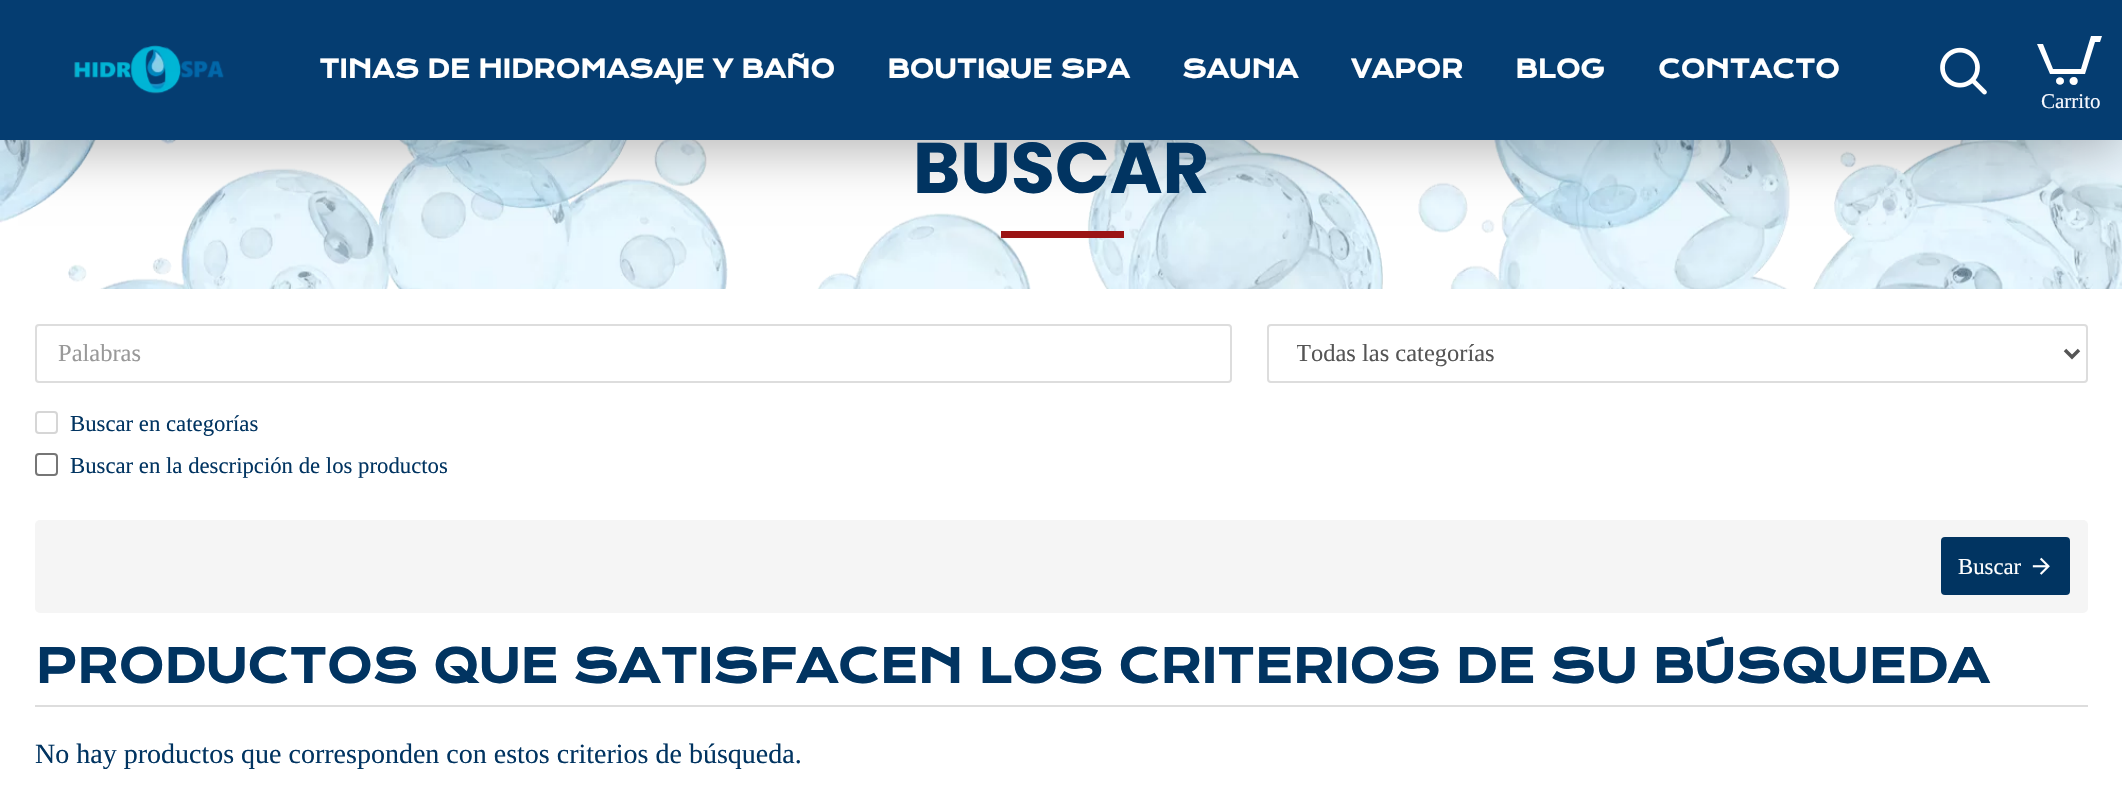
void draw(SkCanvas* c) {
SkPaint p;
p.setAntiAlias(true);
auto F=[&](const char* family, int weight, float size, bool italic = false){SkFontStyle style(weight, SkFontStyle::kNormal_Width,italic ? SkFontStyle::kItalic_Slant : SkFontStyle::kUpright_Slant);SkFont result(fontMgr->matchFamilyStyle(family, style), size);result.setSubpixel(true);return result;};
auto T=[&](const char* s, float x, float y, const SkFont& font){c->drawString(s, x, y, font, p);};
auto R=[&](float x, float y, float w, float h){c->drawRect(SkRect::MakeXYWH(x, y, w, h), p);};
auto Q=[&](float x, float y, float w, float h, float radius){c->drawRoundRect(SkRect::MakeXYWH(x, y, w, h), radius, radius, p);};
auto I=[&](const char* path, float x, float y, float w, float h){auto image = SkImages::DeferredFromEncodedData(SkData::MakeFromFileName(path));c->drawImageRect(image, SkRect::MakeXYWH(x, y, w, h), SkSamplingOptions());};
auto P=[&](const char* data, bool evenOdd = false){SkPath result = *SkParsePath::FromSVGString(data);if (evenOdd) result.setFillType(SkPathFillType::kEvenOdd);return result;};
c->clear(0xffffffff);
I("3.png",0,140,2122,149);
p.setColor(0x4d000000);
p.setMaskFilter(SkMaskFilter::MakeBlur(kNormal_SkBlurStyle, 26));
c->drawRect(SkRect::MakeXYWH(18,-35,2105,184),p);
p.setMaskFilter(nullptr);
p.setColor(0xff053d71);
R(0,0,2122,140);
I("1.png",74,45,150,49);
auto f1 = F("Krona One",700,24.5);
p.setColor(0xffffffff);
T("TINAS DE HIDROMASAJE Y BAÑO",319,78,f1);
T("BOUTIQUE SPA",887,78,f1);
T("SAUNA",1182,78,f1);
T("VAPOR",1351,78,f1);
T("BLOG",1515,78,f1);
T("CONTACTO",1658,78,f1);
I("2.png",1940,47,47,48);
c->drawPath(P("M2064 81c0 5-8 5-8 0c0-5 8-5 8 0zm10-4c-6 0-6 8 0 8c5 0 5-8 0-8zm17-41l-10 33h-28l-10-25h-6l13 30h35l10-32h5l2-6z"),p);
auto f2 = F("Liberation Serif",400,21);
p.setColor(0xfff7f9ff);
T("Carrito",2041,108,f2);
auto f3 = F("Poppins",700,71.75);
p.setColor(0xff013461);
T("BUSCAR",913,193,f3);
p.setColor(0xff9b1414);
R(1001,231,123,7);
p.setStroke(true);
p.setStrokeWidth(2);
p.setColor(0xffdddddd);
c->drawRoundRect(SkRect::MakeXYWH(36,325,1195,57),3,3,p);
auto f4 = F("Liberation Serif",400,24.5);
p.setStroke(false);
p.setColor(0xff999999);
T("Palabras",58,361,f4);
p.setStroke(true);
p.setColor(0xffdddddd);
c->drawRoundRect(SkRect::MakeXYWH(1268,325,819,57),3,3,p);
p.setStrokeWidth(3.5);
p.setColor(0xff555555);
c->drawPath(P("M2065 350l7 7l7-7"),p);
c->save();
c->clipRect(SkRect::MakeXYWH(1297,340,740,29));
p.setStroke(false);
T("Todas las categorías",1296,361,f4);
c->restore();
p.setStroke(true);
p.setStrokeWidth(2);
p.setColor(0xffd6d6d6);
c->drawRoundRect(SkRect::MakeXYWH(36,412,21,21),3,3,p);
auto f5 = F("Liberation Serif",400,22.75);
p.setStroke(false);
p.setColor(0xff013461);
T("Buscar en categorías",70,431,f5);
p.setStroke(true);
p.setColor(0xff767676);
c->drawRoundRect(SkRect::MakeXYWH(36,454,21,21),3,3,p);
p.setStroke(false);
p.setColor(0xff013461);
T("Buscar en la descripción de los productos",70,473,f5);
p.setColor(0xfff5f5f5);
Q(35,520,2053,93,5);
p.setColor(0xff013461);
Q(1941,537,129,58,4);
p.setColor(0xffffffff);
T("Buscar",1958,574,f5);
I("4.png",2032,557,18,18);
p.setColor(0xffdddddd);
R(35,705,2053,2);
auto f6 = F("Krona One",700,45.5);
p.setColor(0xff013461);
T("PRODUCTOS QUE SATISFACEN LOS CRITERIOS DE SU BÚSQUEDA",35,683,f6);
auto f7 = F("Liberation Serif",400,28);
T("No hay productos que corresponden con estos criterios de búsqueda.",35,763,f7);
}
